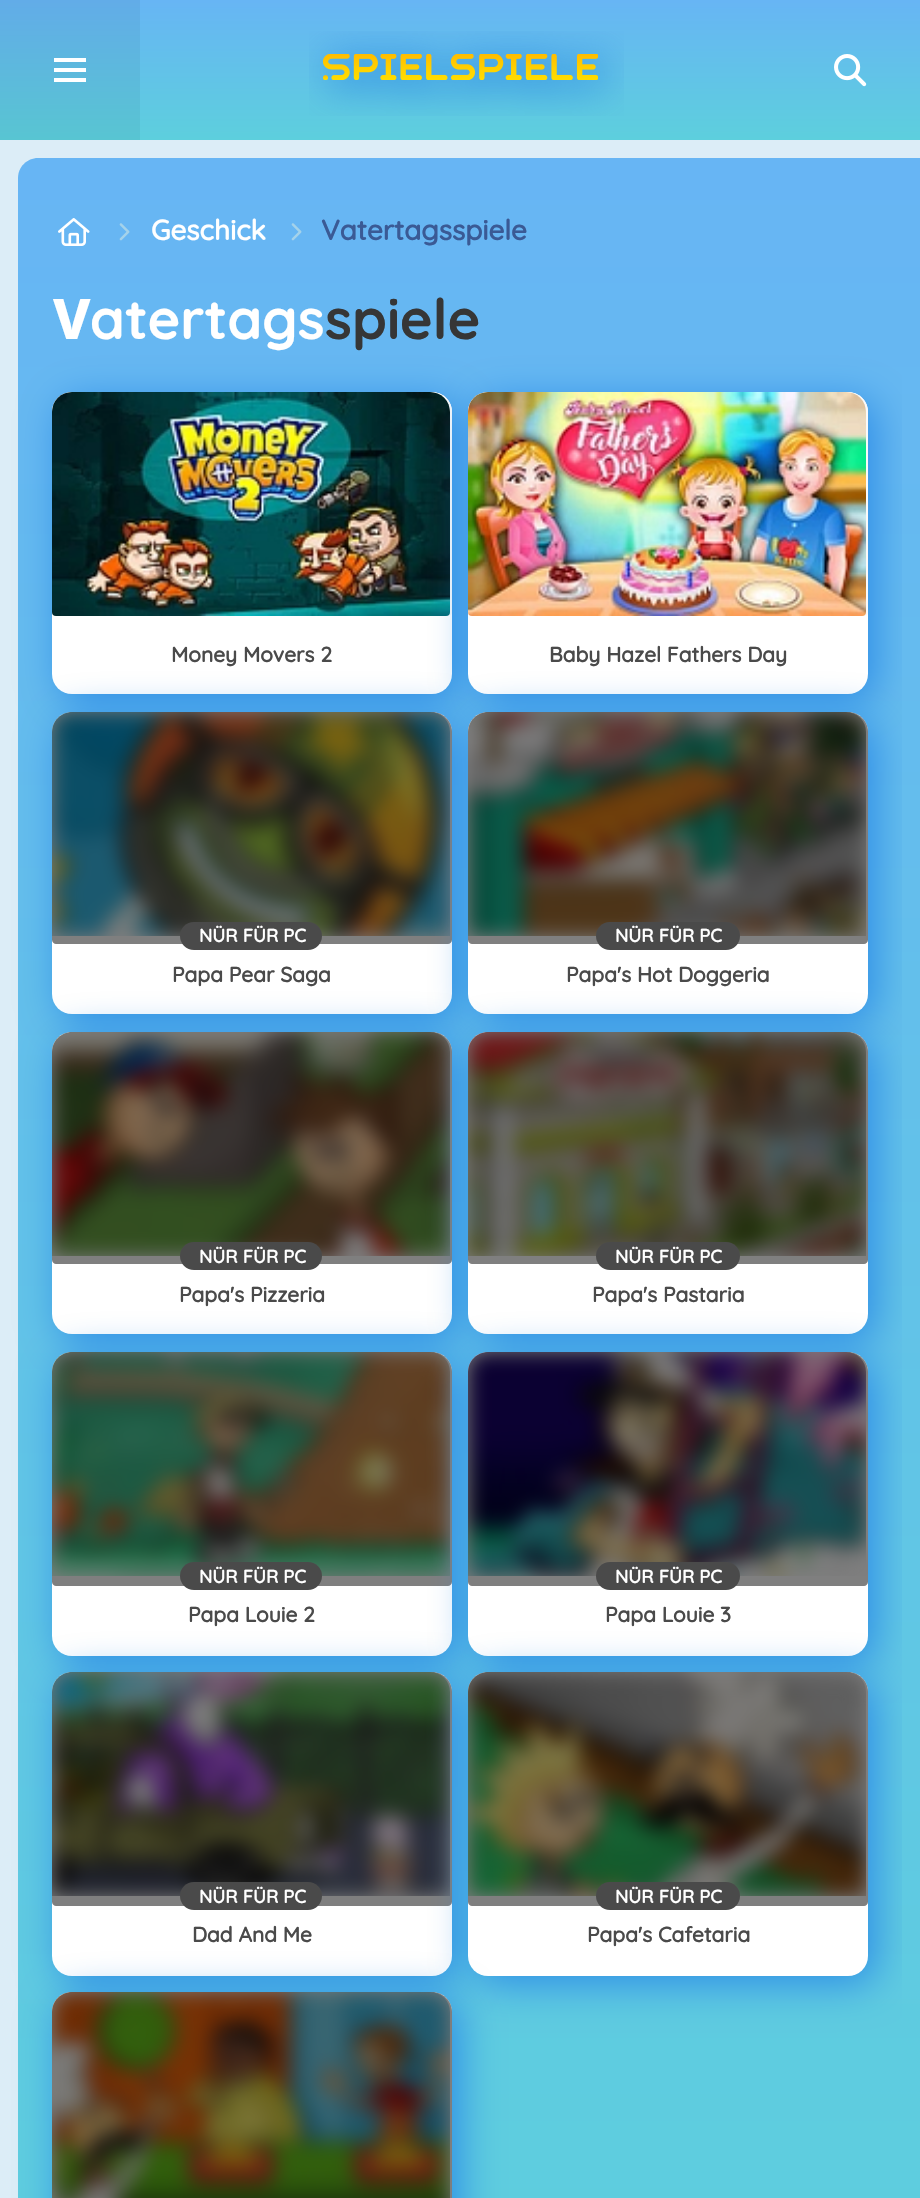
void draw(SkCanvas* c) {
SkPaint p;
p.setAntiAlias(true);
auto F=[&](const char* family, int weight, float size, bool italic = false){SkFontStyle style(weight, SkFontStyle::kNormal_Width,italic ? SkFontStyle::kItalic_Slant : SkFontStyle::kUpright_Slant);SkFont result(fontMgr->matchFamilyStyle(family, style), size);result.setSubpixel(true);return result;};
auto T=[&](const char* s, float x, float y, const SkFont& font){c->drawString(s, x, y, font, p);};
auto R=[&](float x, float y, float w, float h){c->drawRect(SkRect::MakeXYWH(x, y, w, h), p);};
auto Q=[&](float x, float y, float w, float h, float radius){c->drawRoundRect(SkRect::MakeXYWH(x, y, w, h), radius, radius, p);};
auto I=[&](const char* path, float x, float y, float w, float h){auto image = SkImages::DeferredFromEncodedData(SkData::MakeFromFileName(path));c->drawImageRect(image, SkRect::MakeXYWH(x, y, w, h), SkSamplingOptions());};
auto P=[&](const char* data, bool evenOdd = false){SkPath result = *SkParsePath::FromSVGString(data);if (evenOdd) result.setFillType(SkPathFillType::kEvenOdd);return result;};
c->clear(0xffdcedf7);
{
const SkColor colors[] = {0xff5dcfdd,0xff67b5f4};
const float stops[] = {0,1};
const SkPoint ends[] = {{460,140}, {460,0}};
p.setShader(SkGradientShader::MakeLinear(ends, colors, stops, 2, SkTileMode::kClamp));
p.setAlpha(255);
}
R(140,0,780,140);
{
const SkColor colors[] = {0xff58c5d2,0xff62ace8};
const float stops[] = {0,1};
const SkPoint ends[] = {{460,140}, {460,0}};
p.setShader(SkGradientShader::MakeLinear(ends, colors, stops, 2, SkTileMode::kClamp));
p.setAlpha(255);
}
R(0,0,140,140);
p.setShader(nullptr);
p.setColor(0xffffffff);
R(54,58,32,4);
R(54,68,32,4);
R(54,78,32,4);
I("1.png",309,31,315,85);
I("2.png",322,54,276,26);
I("3.png",834,54,33,33);
{
const SkColor colors[] = {0xff5dcfdd,0xff67b5f4};
const float stops[] = {0,1};
const SkPoint ends[] = {{460,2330}, {460,158}};
p.setShader(SkGradientShader::MakeLinear(ends, colors, stops, 2, SkTileMode::kClamp));
p.setAlpha(255);
}
c->drawPath(P("M38 158h864v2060h-864c-11 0-20-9-20-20v-2020c0-11 9-20 20-20z"),p);
I("4.png",58,218,32,28);
I("5.png",119,223,11,18);
auto f1 = F("Quicksand",700,28);
p.setShader(nullptr);
p.setColor(0xffffffff);
T("Geschick",151,240,f1);
I("5.png",291,223,11,18);
p.setColor(0xff3a5a95);
T("Vatertagsspiele",321,240,f1);
p.setColor(0xff2d8de7);
p.setMaskFilter(SkMaskFilter::MakeBlur(kNormal_SkBlurStyle, 20));
c->drawRoundRect(SkRect::MakeXYWH(60,400,400,302),20,20,p);
p.setMaskFilter(nullptr);
p.setColor(0xffffffff);
Q(52,392,400,302,20);
p.setColor(0xfffafafa);
c->drawPath(P("M72 392h360c11 0 20 9 20 20v200c0 2-2 4-4 4h-392c-2 0-4-2-4-4v-200c0-11 9-20 20-20z"),p);
I("6.png",52,392,398,224);
p.setColor(0xff2d8de7);
p.setMaskFilter(SkMaskFilter::MakeBlur(kNormal_SkBlurStyle, 20));
c->drawRoundRect(SkRect::MakeXYWH(476,400,400,302),20,20,p);
p.setMaskFilter(nullptr);
p.setColor(0xffffffff);
Q(468,392,400,302,20);
p.setColor(0xff2d8de7);
p.setMaskFilter(SkMaskFilter::MakeBlur(kNormal_SkBlurStyle, 20));
c->drawRoundRect(SkRect::MakeXYWH(60,720,400,302),20,20,p);
p.setMaskFilter(nullptr);
p.setColor(0xffffffff);
Q(52,712,400,302,20);
c->save();
c->clipRect(SkRect::MakeXYWH(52,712,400,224));
c->clipPath(P("M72 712h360c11 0 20 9 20 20v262c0 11-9 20-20 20h-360c-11 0-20-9-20-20v-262c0-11 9-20 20-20z"),true);
p.setColor(0xfffafafa);
p.setMaskFilter(SkMaskFilter::MakeBlur(kNormal_SkBlurStyle, 10));
c->drawRoundRect(SkRect::MakeXYWH(52,712,400,224),18,18,p);
p.setMaskFilter(nullptr);
c->restore();
I("8.png",52,712,398,224);
p.setColor(0x80000000);
c->drawPath(P("M72 712h360c11 0 20 9 20 20v208c0 2-2 4-4 4h-392c-2 0-4-2-4-4v-208c0-11 9-20 20-20z"),p);
p.setColor(0xff2d8de7);
p.setMaskFilter(SkMaskFilter::MakeBlur(kNormal_SkBlurStyle, 20));
c->drawRoundRect(SkRect::MakeXYWH(476,720,400,302),20,20,p);
p.setMaskFilter(nullptr);
p.setColor(0xffffffff);
Q(468,712,400,302,20);
p.setColor(0xff2d8de7);
p.setMaskFilter(SkMaskFilter::MakeBlur(kNormal_SkBlurStyle, 20));
c->drawRoundRect(SkRect::MakeXYWH(60,1040,400,302),20,20,p);
p.setMaskFilter(nullptr);
p.setColor(0xffffffff);
Q(52,1032,400,302,20);
c->save();
c->clipRect(SkRect::MakeXYWH(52,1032,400,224));
c->clipPath(P("M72 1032h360c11 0 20 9 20 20v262c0 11-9 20-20 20h-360c-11 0-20-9-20-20v-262c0-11 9-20 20-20z"),true);
p.setColor(0xfffafafa);
p.setMaskFilter(SkMaskFilter::MakeBlur(kNormal_SkBlurStyle, 10));
c->drawRoundRect(SkRect::MakeXYWH(52,1032,400,224),18,18,p);
p.setMaskFilter(nullptr);
c->restore();
I("10.png",52,1032,398,224);
p.setColor(0x80000000);
c->drawPath(P("M72 1032h360c11 0 20 9 20 20v208c0 2-2 4-4 4h-392c-2 0-4-2-4-4v-208c0-11 9-20 20-20z"),p);
p.setColor(0xff2d8de7);
p.setMaskFilter(SkMaskFilter::MakeBlur(kNormal_SkBlurStyle, 20));
c->drawRoundRect(SkRect::MakeXYWH(476,1040,400,302),20,20,p);
p.setMaskFilter(nullptr);
p.setColor(0xffffffff);
Q(468,1032,400,302,20);
p.setColor(0xff2d8de7);
p.setMaskFilter(SkMaskFilter::MakeBlur(kNormal_SkBlurStyle, 20));
c->drawRoundRect(SkRect::MakeXYWH(60,1360,400,304),20,20,p);
p.setMaskFilter(nullptr);
p.setColor(0xffffffff);
Q(52,1352,400,304,20);
c->save();
c->clipRect(SkRect::MakeXYWH(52,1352,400,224));
c->clipPath(P("M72 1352h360c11 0 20 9 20 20v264c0 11-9 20-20 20h-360c-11 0-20-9-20-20v-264c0-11 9-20 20-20z"),true);
p.setColor(0xfffafafa);
p.setMaskFilter(SkMaskFilter::MakeBlur(kNormal_SkBlurStyle, 10));
c->drawRoundRect(SkRect::MakeXYWH(52,1352,400,224),18,18,p);
p.setMaskFilter(nullptr);
c->restore();
I("12.png",52,1352,398,224);
p.setColor(0x80000000);
c->drawPath(P("M72 1352h360c11 0 20 9 20 20v210c0 2-2 4-4 4h-392c-2 0-4-2-4-4v-210c0-11 9-20 20-20z"),p);
p.setColor(0xff2d8de7);
p.setMaskFilter(SkMaskFilter::MakeBlur(kNormal_SkBlurStyle, 20));
c->drawRoundRect(SkRect::MakeXYWH(476,1360,400,304),20,20,p);
p.setMaskFilter(nullptr);
p.setColor(0xffffffff);
Q(468,1352,400,304,20);
p.setColor(0xff2d8de7);
p.setMaskFilter(SkMaskFilter::MakeBlur(kNormal_SkBlurStyle, 20));
c->drawRoundRect(SkRect::MakeXYWH(60,1680,400,304),20,20,p);
p.setMaskFilter(nullptr);
p.setColor(0xffffffff);
Q(52,1672,400,304,20);
c->save();
c->clipRect(SkRect::MakeXYWH(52,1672,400,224));
c->clipPath(P("M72 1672h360c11 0 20 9 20 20v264c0 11-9 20-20 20h-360c-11 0-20-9-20-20v-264c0-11 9-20 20-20z"),true);
p.setColor(0xfffafafa);
p.setMaskFilter(SkMaskFilter::MakeBlur(kNormal_SkBlurStyle, 10));
c->drawRoundRect(SkRect::MakeXYWH(52,1672,400,224),18,18,p);
p.setMaskFilter(nullptr);
c->restore();
I("14.png",52,1672,398,224);
p.setColor(0x80000000);
c->drawPath(P("M72 1672h360c11 0 20 9 20 20v210c0 2-2 4-4 4h-392c-2 0-4-2-4-4v-210c0-11 9-20 20-20z"),p);
p.setColor(0xff2d8de7);
p.setMaskFilter(SkMaskFilter::MakeBlur(kNormal_SkBlurStyle, 20));
c->drawRoundRect(SkRect::MakeXYWH(476,1680,400,304),20,20,p);
p.setMaskFilter(nullptr);
{
const SkColor colors[] = {0xff5dcfdd,0xff67b5f4};
const float stops[] = {0,1};
const SkPoint ends[] = {{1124,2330}, {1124,158}};
p.setShader(SkGradientShader::MakeLinear(ends, colors, stops, 2, SkTileMode::kClamp));
p.setAlpha(255);
}
R(902,158,18,2040);
auto f2 = F("Noto Sans",800,56);
p.setShader(nullptr);
p.setColor(0xffffffff);
T("V",53,339,f2);
auto f3 = F("Quicksand",300,56);
T("atertags",90,339,f3);
p.setColor(0xff363636);
T("spiele",325,339,f3);
auto f4 = F("Quicksand",700,21);
p.setColor(0xff4a4a4a);
T("Money Movers 2",171,662,f4);
p.setColor(0xfffafafa);
c->drawPath(P("M488 392h360c11 0 20 9 20 20v200c0 2-2 4-4 4h-392c-2 0-4-2-4-4v-200c0-11 9-20 20-20z"),p);
I("7.png",468,392,398,224);
p.setColor(0xff4a4a4a);
T("Baby Hazel Fathers Day",549,662,f4);
Q(180,922,142,28,14);
auto f5 = F("Quicksand",700,18.25);
p.setColor(0xffffffff);
T("NÜR FÜR PC",199,942,f5);
p.setColor(0xff4a4a4a);
T("Papa Pear Saga",172,982,f4);
c->save();
c->clipRect(SkRect::MakeXYWH(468,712,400,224));
c->clipPath(P("M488 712h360c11 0 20 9 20 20v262c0 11-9 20-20 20h-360c-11 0-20-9-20-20v-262c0-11 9-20 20-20z"),true);
p.setColor(0xfffafafa);
p.setMaskFilter(SkMaskFilter::MakeBlur(kNormal_SkBlurStyle, 10));
c->drawRoundRect(SkRect::MakeXYWH(468,712,400,224),18,18,p);
p.setMaskFilter(nullptr);
c->restore();
I("9.png",468,712,398,224);
p.setColor(0x80000000);
c->drawPath(P("M488 712h360c11 0 20 9 20 20v208c0 2-2 4-4 4h-392c-2 0-4-2-4-4v-208c0-11 9-20 20-20z"),p);
p.setColor(0xff4a4a4a);
Q(596,922,144,28,14);
p.setColor(0xffffffff);
T("NÜR FÜR PC",615,942,f5);
p.setColor(0xff4a4a4a);
T("Papa's Hot Doggeria",566,982,f4);
Q(180,1242,142,28,14);
p.setColor(0xffffffff);
T("NÜR FÜR PC",199,1263,f5);
p.setColor(0xff4a4a4a);
T("Papa's Pizzeria",179,1302,f4);
c->save();
c->clipRect(SkRect::MakeXYWH(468,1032,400,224));
c->clipPath(P("M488 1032h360c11 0 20 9 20 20v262c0 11-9 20-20 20h-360c-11 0-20-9-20-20v-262c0-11 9-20 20-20z"),true);
p.setColor(0xfffafafa);
p.setMaskFilter(SkMaskFilter::MakeBlur(kNormal_SkBlurStyle, 10));
c->drawRoundRect(SkRect::MakeXYWH(468,1032,400,224),18,18,p);
p.setMaskFilter(nullptr);
c->restore();
I("11.png",468,1032,398,224);
p.setColor(0x80000000);
c->drawPath(P("M488 1032h360c11 0 20 9 20 20v208c0 2-2 4-4 4h-392c-2 0-4-2-4-4v-208c0-11 9-20 20-20z"),p);
p.setColor(0xff4a4a4a);
Q(596,1242,144,28,14);
p.setColor(0xffffffff);
T("NÜR FÜR PC",615,1263,f5);
p.setColor(0xff4a4a4a);
T("Papa's Pastaria",592,1302,f4);
Q(180,1562,142,28,14);
p.setColor(0xffffffff);
T("NÜR FÜR PC",199,1583,f5);
p.setColor(0xff4a4a4a);
T("Papa Louie 2",188,1622,f4);
c->save();
c->clipRect(SkRect::MakeXYWH(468,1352,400,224));
c->clipPath(P("M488 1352h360c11 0 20 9 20 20v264c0 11-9 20-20 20h-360c-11 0-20-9-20-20v-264c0-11 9-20 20-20z"),true);
p.setColor(0xfffafafa);
p.setMaskFilter(SkMaskFilter::MakeBlur(kNormal_SkBlurStyle, 10));
c->drawRoundRect(SkRect::MakeXYWH(468,1352,400,224),18,18,p);
p.setMaskFilter(nullptr);
c->restore();
I("13.png",468,1352,398,224);
p.setColor(0x80000000);
c->drawPath(P("M488 1352h360c11 0 20 9 20 20v210c0 2-2 4-4 4h-392c-2 0-4-2-4-4v-210c0-11 9-20 20-20z"),p);
p.setColor(0xff4a4a4a);
Q(596,1562,144,28,14);
p.setColor(0xffffffff);
T("NÜR FÜR PC",615,1583,f5);
p.setColor(0xff4a4a4a);
T("Papa Louie 3",605,1622,f4);
Q(180,1882,142,28,14);
p.setColor(0xffffffff);
T("NÜR FÜR PC",199,1903,f5);
p.setColor(0xff4a4a4a);
T("Dad And Me",192,1942,f4);
p.setColor(0xffffffff);
Q(468,1672,400,304,20);
c->save();
c->clipRect(SkRect::MakeXYWH(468,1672,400,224));
c->clipPath(P("M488 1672h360c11 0 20 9 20 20v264c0 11-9 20-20 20h-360c-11 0-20-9-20-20v-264c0-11 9-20 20-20z"),true);
p.setColor(0xfffafafa);
p.setMaskFilter(SkMaskFilter::MakeBlur(kNormal_SkBlurStyle, 10));
c->drawRoundRect(SkRect::MakeXYWH(468,1672,400,224),18,18,p);
p.setMaskFilter(nullptr);
c->restore();
I("15.png",468,1672,398,224);
p.setColor(0x80000000);
c->drawPath(P("M488 1672h360c11 0 20 9 20 20v210c0 2-2 4-4 4h-392c-2 0-4-2-4-4v-210c0-11 9-20 20-20z"),p);
p.setColor(0xff4a4a4a);
Q(596,1882,144,28,14);
p.setColor(0xffffffff);
T("NÜR FÜR PC",615,1903,f5);
p.setColor(0xff4a4a4a);
T("Papa's Cafetaria",587,1942,f4);
p.setColor(0xff2d8de7);
p.setMaskFilter(SkMaskFilter::MakeBlur(kNormal_SkBlurStyle, 20));
c->drawRoundRect(SkRect::MakeXYWH(60,2000,400,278),20,20,p);
p.setMaskFilter(nullptr);
p.setColor(0xffffffff);
Q(52,1992,400,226,20);
c->save();
c->clipPath(P("M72 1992h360c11 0 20 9 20 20v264c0 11-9 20-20 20h-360c-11 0-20-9-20-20v-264c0-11 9-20 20-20z"),true);
p.setColor(0xfffafafa);
p.setMaskFilter(SkMaskFilter::MakeBlur(kNormal_SkBlurStyle, 10));
c->drawRoundRect(SkRect::MakeXYWH(52,1992,400,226),18,18,p);
p.setMaskFilter(nullptr);
c->restore();
I("16.png",52,1992,398,206);
p.setColor(0x80000000);
c->drawPath(P("M72 1992h360c11 0 20 9 20 20v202c0 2-2 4-4 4h-392c-2 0-4-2-4-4v-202c0-11 9-20 20-20z"),p);
}
